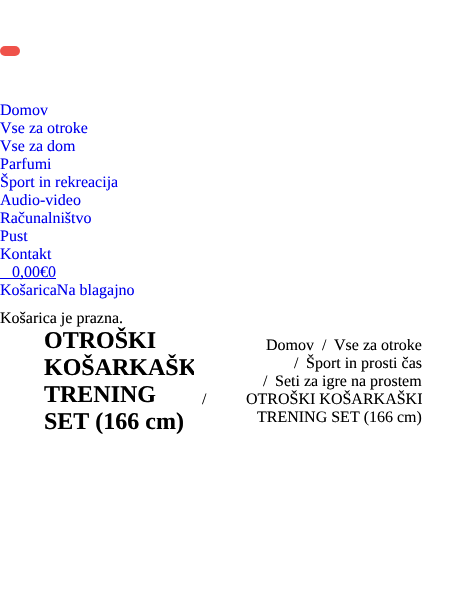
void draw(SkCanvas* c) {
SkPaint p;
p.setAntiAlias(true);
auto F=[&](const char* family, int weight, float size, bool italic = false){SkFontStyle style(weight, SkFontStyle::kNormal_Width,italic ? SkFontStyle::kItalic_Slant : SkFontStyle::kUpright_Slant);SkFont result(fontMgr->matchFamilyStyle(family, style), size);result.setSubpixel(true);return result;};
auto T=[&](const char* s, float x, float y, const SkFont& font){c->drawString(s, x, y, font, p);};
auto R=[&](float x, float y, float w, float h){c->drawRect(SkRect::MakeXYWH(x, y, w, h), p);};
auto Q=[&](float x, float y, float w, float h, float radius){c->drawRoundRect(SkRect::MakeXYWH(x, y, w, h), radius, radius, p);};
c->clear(0xffffffff);
p.setColor(0xffef524a);
Q(0,46,20,10,5);
auto f1 = F("Liberation Serif",400,16);
p.setColor(0xff0000ee);
T("Domov",0,115,f1);
T("Vse za otroke",0,133,f1);
T("Vse za dom",0,151,f1);
T("Parfumi",0,169,f1);
T("Šport in rekreacija",0,187,f1);
T("Audio-video",0,205,f1);
T("Računalništvo",0,223,f1);
T("Pust",0,241,f1);
T("Kontakt",0,259,f1);
R(0,278,48,1);
T("0,00€0",12,277,f1);
R(48,278,8,1);
T("KošaricaNa blagajno",0,295,f1);
p.setColor(0xff000000);
T("Košarica je prazna.",0,323,f1);
auto f2 = F("Liberation Serif",700,24);
T("OTROŠKI",44,348,f2);
c->save();
c->clipRect(SkRect::MakeXYWH(44,327,150,108));
T("KOŠARKAŠK",44,375,f2);
c->restore();
T("TRENING",44,402,f2);
T("SET (166 cm)",44,429,f2);
T("Domov",266,350,f1);
T("/",322,350,f1);
T("Vse za otroke",334,350,f1);
T("/",294,368,f1);
T("Šport in prosti čas",306,368,f1);
T("/",263,386,f1);
T("Seti za igre na prostem",275,386,f1);
T("/",202,404,f1);
T("OTROŠKI KOŠARKAŠKI",246,404,f1);
T("TRENING SET (166 cm)",257,422,f1);
}
